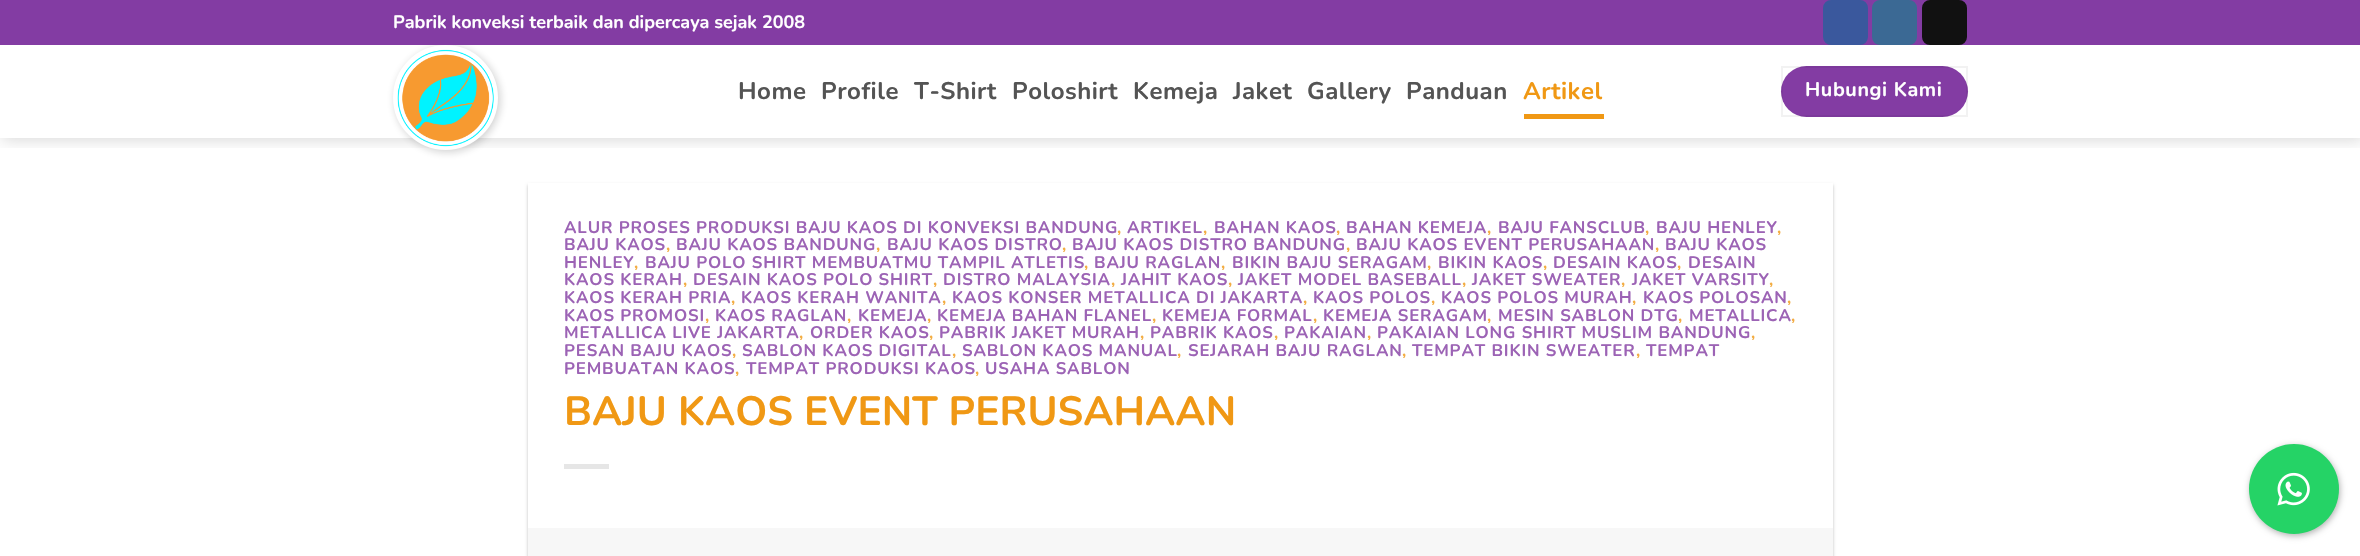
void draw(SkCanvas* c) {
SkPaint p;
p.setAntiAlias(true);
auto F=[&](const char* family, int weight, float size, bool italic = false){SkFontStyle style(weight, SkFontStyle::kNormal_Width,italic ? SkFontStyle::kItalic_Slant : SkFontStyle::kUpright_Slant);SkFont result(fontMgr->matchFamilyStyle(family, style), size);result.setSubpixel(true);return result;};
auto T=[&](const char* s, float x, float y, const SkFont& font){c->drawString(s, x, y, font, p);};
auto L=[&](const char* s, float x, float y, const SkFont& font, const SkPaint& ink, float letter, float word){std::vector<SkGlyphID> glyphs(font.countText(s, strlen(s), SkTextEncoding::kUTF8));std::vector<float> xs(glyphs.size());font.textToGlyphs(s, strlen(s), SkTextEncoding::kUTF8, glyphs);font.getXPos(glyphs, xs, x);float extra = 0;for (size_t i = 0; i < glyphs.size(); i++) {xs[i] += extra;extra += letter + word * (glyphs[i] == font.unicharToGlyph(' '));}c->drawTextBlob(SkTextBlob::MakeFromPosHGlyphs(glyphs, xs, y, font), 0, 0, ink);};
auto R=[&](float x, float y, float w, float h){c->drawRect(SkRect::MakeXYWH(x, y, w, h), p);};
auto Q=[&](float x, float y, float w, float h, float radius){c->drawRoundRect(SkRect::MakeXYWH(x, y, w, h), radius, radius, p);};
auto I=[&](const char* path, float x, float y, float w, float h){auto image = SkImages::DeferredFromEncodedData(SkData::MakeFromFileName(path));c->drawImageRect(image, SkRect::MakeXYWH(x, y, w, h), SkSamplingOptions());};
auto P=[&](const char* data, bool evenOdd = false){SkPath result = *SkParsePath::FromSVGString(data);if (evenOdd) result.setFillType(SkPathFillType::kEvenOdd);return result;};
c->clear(0xffffffff);
c->save();
c->clipRect(SkRect::MakeXYWH(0,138,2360,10));
p.setColor(0x26000000);
p.setMaskFilter(SkMaskFilter::MakeBlur(kNormal_SkBlurStyle, 7.5));
c->drawRect(SkRect::MakeXYWH(2,2,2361,138),p);
p.setMaskFilter(nullptr);
c->restore();
p.setColor(0x33111111);
p.setMaskFilter(SkMaskFilter::MakeBlur(kNormal_SkBlurStyle, 4));
c->drawRoundRect(SkRect::MakeXYWH(395,47,105,105),52.5,52.5,p);
p.setMaskFilter(nullptr);
p.setColor(0xff833ca3);
R(0,0,2360,45);
auto f1 = F("Nunito",700,18);
p.setColor(0xffffffff);
T("Pabrik konveksi terbaik dan dipercaya sejak 2008",393,28,f1);
p.setColor(0xff3a589d);
c->drawRoundRect(SkRect::MakeXYWH(1824,1,43,43),7,7,p);
p.setStroke(true);
p.setStrokeWidth(2);
c->drawRoundRect(SkRect::MakeXYWH(1824,1,43,43),7,7,p);
p.setStroke(false);
p.setColor(0xff3b6994);
c->drawRoundRect(SkRect::MakeXYWH(1873,1,43,43),7,7,p);
p.setStroke(true);
c->drawRoundRect(SkRect::MakeXYWH(1873,1,43,43),7,7,p);
p.setStroke(false);
p.setColor(0xff111111);
c->drawRoundRect(SkRect::MakeXYWH(1923,1,43,43),7,7,p);
p.setStroke(true);
c->drawRoundRect(SkRect::MakeXYWH(1923,1,43,43),7,7,p);
p.setStroke(false);
p.setColor(0xffffffff);
c->drawCircle(445.5,97.5,51,p);
p.setStroke(true);
p.setStrokeWidth(3);
c->drawCircle(445.5,97.5,51,p);
I("1.png",397,49,97,98);
auto f2 = F("Nunito",700,24);
p.setStroke(false);
p.setColor(0xff545454);
L("Home",738,99,f2,p,.5,0);
L("Profile",821,99,f2,p,.5,0);
L("T-Shirt",914,99,f2,p,.5,0);
L("Poloshirt",1012,99,f2,p,.5,0);
L("Kemeja",1133,99,f2,p,.5,0);
L("Jaket",1233,99,f2,p,.5,0);
L("Gallery",1307,99,f2,p,.5,0);
L("Panduan",1406,99,f2,p,.5,0);
p.setColor(0xfff09814);
L("Artikel",1523,99,f2,p,.5,0);
R(1524,114,80,5);
p.setColor(0xff833ca3);
Q(1781,66,187,51,25.5);
p.setStroke(true);
p.setStrokeWidth(2);
p.setColor(0x0d000000);
c->drawRect(SkRect::MakeXYWH(1782,67,185,49),p);
auto f3 = F("Nunito",700,19.75);
p.setStroke(false);
p.setColor(0xffffffff);
L("Hubungi Kami",1805,96,f3,p,.6,0);
c->save();
c->clipPath(P("M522 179h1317v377h-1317zm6 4h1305v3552h-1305z",true),true);
p.setColor(0x3d000000);
p.setMaskFilter(SkMaskFilter::MakeBlur(kNormal_SkBlurStyle, 1.5));
c->drawRect(SkRect::MakeXYWH(528,185,1305,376),p);
p.setMaskFilter(nullptr);
c->restore();
auto f4 = F("Nunito",700,16.8);
p.setColor(0xff9c63b5);
L("ALUR PROSES PRODUKSI BAJU KAOS DI KONVEKSI BANDUNG",564,233,f4,p,.85,0);
p.setColor(0xfff3ad43);
L(",",1117,233,f4,p,.85,0);
p.setColor(0xff9c63b5);
L("ARTIKEL",1127,233,f4,p,.85,0);
p.setColor(0xfff3ad43);
L(",",1203,233,f4,p,.85,0);
p.setColor(0xff9c63b5);
L("BAHAN KAOS",1214,233,f4,p,.85,0);
p.setColor(0xfff3ad43);
L(",",1336,233,f4,p,.85,0);
p.setColor(0xff9c63b5);
L("BAHAN KEMEJA",1346,233,f4,p,.85,0);
p.setColor(0xfff3ad43);
L(",",1487,233,f4,p,.85,0);
p.setColor(0xff9c63b5);
L("BAJU FANSCLUB",1498,233,f4,p,.85,0);
p.setColor(0xfff3ad43);
L(",",1645,233,f4,p,.85,0);
p.setColor(0xff9c63b5);
L("BAJU HENLEY",1656,233,f4,p,.85,0);
p.setColor(0xfff3ad43);
L(",",1777,233,f4,p,.85,0);
p.setColor(0xff9c63b5);
L("BAJU KAOS",564,250,f4,p,.85,0);
p.setColor(0xfff3ad43);
L(",",666,250,f4,p,.85,0);
p.setColor(0xff9c63b5);
L("BAJU KAOS BANDUNG",676,250,f4,p,.85,0);
p.setColor(0xfff3ad43);
L(",",876,250,f4,p,.85,0);
p.setColor(0xff9c63b5);
L("BAJU KAOS DISTRO",887,250,f4,p,.85,0);
p.setColor(0xfff3ad43);
L(",",1062,250,f4,p,.85,0);
p.setColor(0xff9c63b5);
L("BAJU KAOS DISTRO BANDUNG",1072,250,f4,p,.85,0);
p.setColor(0xfff3ad43);
L(",",1346,250,f4,p,.85,0);
p.setColor(0xff9c63b5);
L("BAJU KAOS EVENT PERUSAHAAN",1356,250,f4,p,.85,0);
p.setColor(0xfff3ad43);
L(",",1655,250,f4,p,.85,0);
p.setColor(0xff9c63b5);
L("BAJU KAOS",1665,250,f4,p,.85,0);
L("HENLEY",564,268,f4,p,.85,0);
p.setColor(0xfff3ad43);
L(",",634,268,f4,p,.85,0);
p.setColor(0xff9c63b5);
L("BAJU POLO SHIRT MEMBUATMU TAMPIL ATLETIS",645,268,f4,p,.85,0);
p.setColor(0xfff3ad43);
L(",",1084,268,f4,p,.85,0);
p.setColor(0xff9c63b5);
L("BAJU RAGLAN",1094,268,f4,p,.85,0);
p.setColor(0xfff3ad43);
L(",",1221,268,f4,p,.85,0);
p.setColor(0xff9c63b5);
L("BIKIN BAJU SERAGAM",1232,268,f4,p,.85,0);
p.setColor(0xfff3ad43);
L(",",1427,268,f4,p,.85,0);
p.setColor(0xff9c63b5);
L("BIKIN KAOS",1438,268,f4,p,.85,0);
p.setColor(0xfff3ad43);
L(",",1543,268,f4,p,.85,0);
p.setColor(0xff9c63b5);
L("DESAIN KAOS",1553,268,f4,p,.85,0);
p.setColor(0xfff3ad43);
L(",",1677,268,f4,p,.85,0);
p.setColor(0xff9c63b5);
L("DESAIN",1688,268,f4,p,.85,0);
L("KAOS KERAH",564,285,f4,p,.85,0);
p.setColor(0xfff3ad43);
L(",",683,285,f4,p,.85,0);
p.setColor(0xff9c63b5);
L("DESAIN KAOS POLO SHIRT",693,285,f4,p,.85,0);
p.setColor(0xfff3ad43);
L(",",933,285,f4,p,.85,0);
p.setColor(0xff9c63b5);
L("DISTRO MALAYSIA",943,285,f4,p,.85,0);
p.setColor(0xfff3ad43);
L(",",1111,285,f4,p,.85,0);
p.setColor(0xff9c63b5);
L("JAHIT KAOS",1121,285,f4,p,.85,0);
p.setColor(0xfff3ad43);
L(",",1228,285,f4,p,.85,0);
p.setColor(0xff9c63b5);
L("JAKET MODEL BASEBALL",1238,285,f4,p,.85,0);
p.setColor(0xfff3ad43);
L(",",1462,285,f4,p,.85,0);
p.setColor(0xff9c63b5);
L("JAKET SWEATER",1472,285,f4,p,.85,0);
p.setColor(0xfff3ad43);
L(",",1621,285,f4,p,.85,0);
p.setColor(0xff9c63b5);
L("JAKET VARSITY",1632,285,f4,p,.85,0);
p.setColor(0xfff3ad43);
L(",",1769,285,f4,p,.85,0);
p.setColor(0xff9c63b5);
L("KAOS KERAH PRIA",564,303,f4,p,.85,0);
p.setColor(0xfff3ad43);
L(",",731,303,f4,p,.85,0);
p.setColor(0xff9c63b5);
L("KAOS KERAH WANITA",741,303,f4,p,.85,0);
p.setColor(0xfff3ad43);
L(",",942,303,f4,p,.85,0);
p.setColor(0xff9c63b5);
L("KAOS KONSER METALLICA DI JAKARTA",952,303,f4,p,.85,0);
p.setColor(0xfff3ad43);
L(",",1303,303,f4,p,.85,0);
p.setColor(0xff9c63b5);
L("KAOS POLOS",1313,303,f4,p,.85,0);
p.setColor(0xfff3ad43);
L(",",1431,303,f4,p,.85,0);
p.setColor(0xff9c63b5);
L("KAOS POLOS MURAH",1441,303,f4,p,.85,0);
p.setColor(0xfff3ad43);
L(",",1632,303,f4,p,.85,0);
p.setColor(0xff9c63b5);
L("KAOS POLOSAN",1643,303,f4,p,.85,0);
p.setColor(0xfff3ad43);
L(",",1787,303,f4,p,.85,0);
p.setColor(0xff9c63b5);
L("KAOS PROMOSI",564,321,f4,p,.85,0);
p.setColor(0xfff3ad43);
L(",",705,321,f4,p,.85,0);
p.setColor(0xff9c63b5);
L("KAOS RAGLAN",715,321,f4,p,.85,0);
p.setColor(0xfff3ad43);
L(",",847,321,f4,p,.85,0);
p.setColor(0xff9c63b5);
L("KEMEJA",858,321,f4,p,.85,0);
p.setColor(0xfff3ad43);
L(",",927,321,f4,p,.85,0);
p.setColor(0xff9c63b5);
L("KEMEJA BAHAN FLANEL",937,321,f4,p,.85,0);
p.setColor(0xfff3ad43);
L(",",1152,321,f4,p,.85,0);
p.setColor(0xff9c63b5);
L("KEMEJA FORMAL",1162,321,f4,p,.85,0);
p.setColor(0xfff3ad43);
L(",",1313,321,f4,p,.85,0);
p.setColor(0xff9c63b5);
L("KEMEJA SERAGAM",1323,321,f4,p,.85,0);
p.setColor(0xfff3ad43);
L(",",1487,321,f4,p,.85,0);
p.setColor(0xff9c63b5);
L("MESIN SABLON DTG",1498,321,f4,p,.85,0);
p.setColor(0xfff3ad43);
L(",",1678,321,f4,p,.85,0);
p.setColor(0xff9c63b5);
L("METALLICA",1689,321,f4,p,.85,0);
p.setColor(0xfff3ad43);
L(",",1791,321,f4,p,.85,0);
p.setColor(0xff9c63b5);
L("METALLICA LIVE JAKARTA",564,338,f4,p,.85,0);
p.setColor(0xfff3ad43);
L(",",799,338,f4,p,.85,0);
p.setColor(0xff9c63b5);
L("ORDER KAOS",810,338,f4,p,.85,0);
p.setColor(0xfff3ad43);
L(",",929,338,f4,p,.85,0);
p.setColor(0xff9c63b5);
L("PABRIK JAKET MURAH",939,338,f4,p,.85,0);
p.setColor(0xfff3ad43);
L(",",1140,338,f4,p,.85,0);
p.setColor(0xff9c63b5);
L("PABRIK KAOS",1150,338,f4,p,.85,0);
p.setColor(0xfff3ad43);
L(",",1274,338,f4,p,.85,0);
p.setColor(0xff9c63b5);
L("PAKAIAN",1284,338,f4,p,.85,0);
p.setColor(0xfff3ad43);
L(",",1367,338,f4,p,.85,0);
p.setColor(0xff9c63b5);
L("PAKAIAN LONG SHIRT MUSLIM BANDUNG",1377,338,f4,p,.85,0);
p.setColor(0xfff3ad43);
L(",",1751,338,f4,p,.85,0);
p.setColor(0xff9c63b5);
L("PESAN BAJU KAOS",564,356,f4,p,.85,0);
p.setColor(0xfff3ad43);
L(",",732,356,f4,p,.85,0);
p.setColor(0xff9c63b5);
L("SABLON KAOS DIGITAL",742,356,f4,p,.85,0);
p.setColor(0xfff3ad43);
L(",",952,356,f4,p,.85,0);
p.setColor(0xff9c63b5);
L("SABLON KAOS MANUAL",962,356,f4,p,.85,0);
p.setColor(0xfff3ad43);
L(",",1177,356,f4,p,.85,0);
p.setColor(0xff9c63b5);
L("SEJARAH BAJU RAGLAN",1188,356,f4,p,.85,0);
p.setColor(0xfff3ad43);
L(",",1402,356,f4,p,.85,0);
p.setColor(0xff9c63b5);
L("TEMPAT BIKIN SWEATER",1412,356,f4,p,.85,0);
p.setColor(0xfff3ad43);
L(",",1636,356,f4,p,.85,0);
p.setColor(0xff9c63b5);
L("TEMPAT",1646,356,f4,p,.85,0);
L("PEMBUATAN KAOS",564,374,f4,p,.85,0);
p.setColor(0xfff3ad43);
L(",",735,374,f4,p,.85,0);
p.setColor(0xff9c63b5);
L("TEMPAT PRODUKSI KAOS",746,374,f4,p,.85,0);
p.setColor(0xfff3ad43);
L(",",975,374,f4,p,.85,0);
p.setColor(0xff9c63b5);
L("USAHA SABLON",985,374,f4,p,.85,0);
auto f5 = F("Nunito",700,40.75);
p.setColor(0xfff09814);
T("BAJU KAOS EVENT PERUSAHAAN",564,425,f5);
p.setColor(0xffe6e6e6);
R(564,464,45,5);
p.setColor(0xfff7f7f7);
R(528,528,1305,28);
p.setColor(0x4d000000);
p.setMaskFilter(SkMaskFilter::MakeBlur(kNormal_SkBlurStyle, 3));
c->drawRoundRect(SkRect::MakeXYWH(2250,446,90,90),45,45,p);
p.setMaskFilter(nullptr);
p.setColor(0xff25d366);
c->drawCircle(2294,489,45,p);
I("2.png",2277,472,33,34);
}
